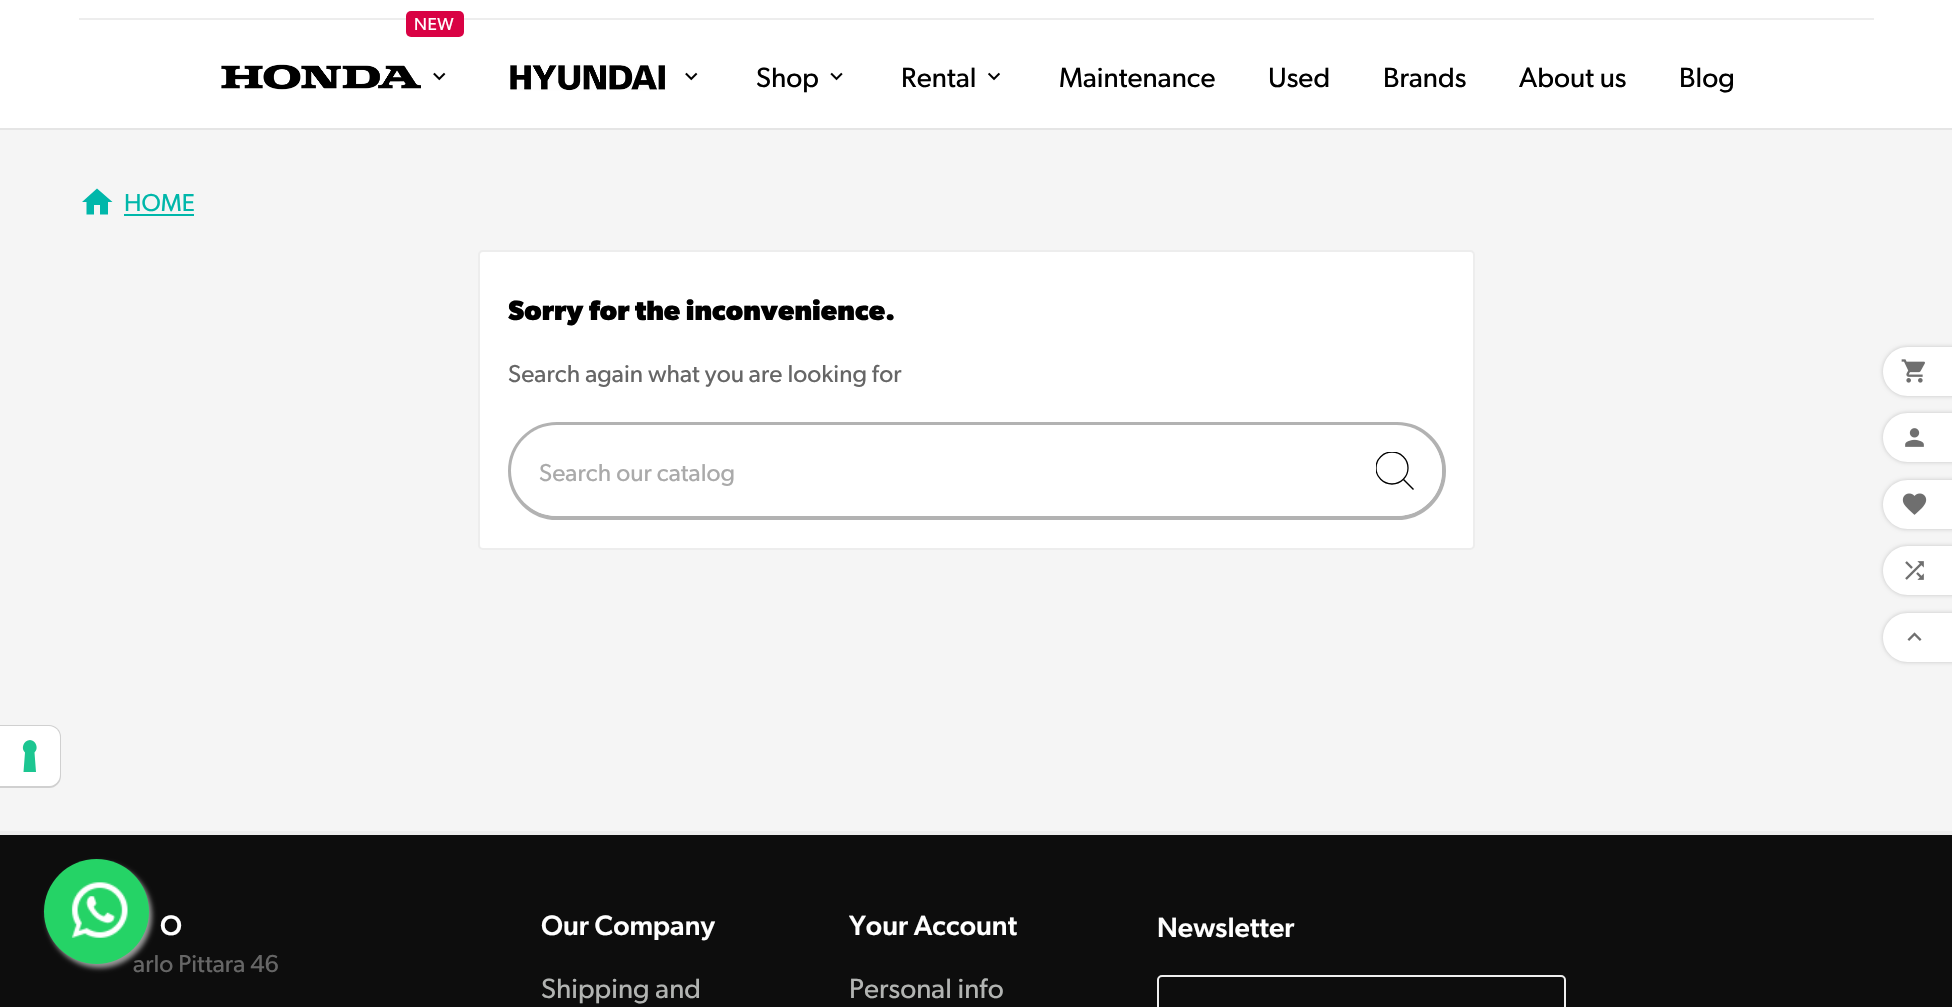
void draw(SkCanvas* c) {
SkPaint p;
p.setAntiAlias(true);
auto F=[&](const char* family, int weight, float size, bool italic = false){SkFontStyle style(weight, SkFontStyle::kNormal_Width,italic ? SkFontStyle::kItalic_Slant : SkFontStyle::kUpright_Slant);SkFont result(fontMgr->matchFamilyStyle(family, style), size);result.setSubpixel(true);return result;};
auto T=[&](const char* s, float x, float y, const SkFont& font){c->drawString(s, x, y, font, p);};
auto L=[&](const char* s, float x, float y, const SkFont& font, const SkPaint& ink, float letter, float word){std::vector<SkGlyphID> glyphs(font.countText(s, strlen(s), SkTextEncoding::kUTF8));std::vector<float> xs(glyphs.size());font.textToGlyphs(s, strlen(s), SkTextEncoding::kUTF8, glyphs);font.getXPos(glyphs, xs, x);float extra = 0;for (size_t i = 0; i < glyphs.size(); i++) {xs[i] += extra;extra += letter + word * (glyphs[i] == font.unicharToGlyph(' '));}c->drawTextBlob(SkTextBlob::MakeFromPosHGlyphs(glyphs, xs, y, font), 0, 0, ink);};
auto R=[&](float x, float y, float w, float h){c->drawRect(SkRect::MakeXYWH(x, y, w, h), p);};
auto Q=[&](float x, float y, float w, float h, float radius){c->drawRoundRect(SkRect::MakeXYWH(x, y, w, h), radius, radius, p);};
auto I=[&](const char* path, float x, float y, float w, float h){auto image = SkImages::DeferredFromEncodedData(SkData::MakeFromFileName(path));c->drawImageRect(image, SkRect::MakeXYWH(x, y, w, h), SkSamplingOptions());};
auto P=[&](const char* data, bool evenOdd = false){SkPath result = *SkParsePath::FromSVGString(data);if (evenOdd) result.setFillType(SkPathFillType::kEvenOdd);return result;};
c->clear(0xfff5f5f5);
p.setStroke(true);
p.setStrokeWidth(2);
p.setColor(0xffd0d0d0);
c->drawPath(P("M-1 726h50c6 0 11 5 11 11v39c0 6-5 11-11 11h-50z"),p);
p.setStroke(false);
p.setColor(0xffffffff);
c->drawPath(P("M0 726h49c6 0 11 5 11 11v38c0 6-5 11-11 11h-49z"),p);
p.setColor(0xff1cc691);
c->drawPath(P("M30 740c6 .5 9 8.5 4.5 12.5l1.5 19.5h-12.5l1.5-19.5c-4.5-4-1.5-12 5-12.5z",true),p);
p.setColor(0xffffffff);
R(0,0,1952,128);
p.setColor(0xffe5e5e5);
R(0,128,1952,2);
p.setColor(0xffededed);
R(79,18,1795,2);
p.setColor(0xffd90244);
Q(406,11,58,26,5);
auto f1 = F("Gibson",400,17.5);
p.setColor(0xffffffff);
L("NEW",414,30,f1,p,.5,0);
I("1.png",221,64,200,26);
I("2.png",433,72,13,9);
I("3.png",510,64,155,27);
I("2.png",685,72,13,9);
auto f2 = F("Gibson",400,28);
p.setColor(0xff000000);
T("Shop",756,87,f2);
I("4.png",830,72,13,9);
T("Rental",901,87,f2);
I("5.png",988,72,12,9);
T("Maintenance",1059,87,f2);
T("Used",1268,87,f2);
T("Brands",1383,87,f2);
T("About us",1519,87,f2);
T("Blog",1679,87,f2);
auto f3 = F("Gibson",400,24.5);
p.setColor(0xff00b7aa);
T("HOME",124,211,f3);
c->drawPath(P("M94 214.5h-7.5v-12.5h-4.5l15-13.5l15.5 13.5h-4.5v12.5h-8v-9.5h-6z"),p);
R(124,214,70,2);
p.setColor(0xffffffff);
Q(478,250,997,300,5);
p.setStroke(true);
p.setColor(0x12000000);
c->drawRoundRect(SkRect::MakeXYWH(479,251,995,298),4,4,p);
auto f4 = F("Gibson",700,28);
p.setStroke(false);
p.setColor(0xff000000);
T("Sorry for the inconvenience.",508,320,f4);
p.setColor(0xff666666);
T("Search again what you are looking for",508,382,f3);
p.setStroke(true);
p.setStrokeWidth(4);
p.setColor(0xffb2b2b2);
c->drawRoundRect(SkRect::MakeXYWH(510,424,934,94),47,47,p);
p.setStroke(false);
p.setColor(0xffffffff);
c->drawPath(P("M556.5 425h791.5v91h-791.5c-25 0-45.5-20.5-45.5-45.5c0-25 20.5-45.5 45.5-45.5z"),p);
p.setColor(0xffaaaaaa);
T("Search our catalog",539,481,f3);
p.setColor(0xffffffff);
c->drawPath(P("M1348 425h48.5c25 0 45.5 20.5 45.5 45.5c0 25-20.5 45.5-45.5 45.5h-48.5z"),p);
p.setColor(0xff000000);
c->drawPath(P("M1413 490l-10-10l1-1l10 10z"),p);
c->save();
c->clipRect(SkRect::MakeXYWH(1376,452,38,38));
p.setStroke(true);
p.setStrokeWidth(1.3);
c->drawCircle(1392,468,16,p);
c->restore();
p.setStroke(false);
p.setColor(0xffededed);
R(0,831,1952,4);
p.setColor(0x33000000);
p.setMaskFilter(SkMaskFilter::MakeBlur(kNormal_SkBlurStyle, 2));
c->drawRoundRect(SkRect::MakeXYWH(1883,347,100,49),24.5,24.5,p);
p.setMaskFilter(nullptr);
p.setColor(0xffffffff);
c->drawPath(P("M1907.5 347h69.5v49h-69.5c-13.5 0-24.5-11-24.5-24.5c0-13.5 11-24.5 24.5-24.5z"),p);
I("6.png",1901,359,24,24);
p.setColor(0x33000000);
p.setMaskFilter(SkMaskFilter::MakeBlur(kNormal_SkBlurStyle, 2));
c->drawRoundRect(SkRect::MakeXYWH(1883,413,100,49),24.5,24.5,p);
p.setMaskFilter(nullptr);
p.setColor(0xffffffff);
c->drawPath(P("M1907.5 413h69.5v49h-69.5c-13.5 0-24.5-11-24.5-24.5c0-13.5 11-24.5 24.5-24.5z"),p);
I("7.png",1905,428,19,19);
p.setColor(0x33000000);
p.setMaskFilter(SkMaskFilter::MakeBlur(kNormal_SkBlurStyle, 2));
c->drawRoundRect(SkRect::MakeXYWH(1883,480,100,49),24.5,24.5,p);
p.setMaskFilter(nullptr);
p.setColor(0xffffffff);
c->drawPath(P("M1907.5 480h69.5v49h-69.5c-13.5 0-24.5-11-24.5-24.5c0-13.5 11-24.5 24.5-24.5z"),p);
I("8.png",1902,493,25,22);
p.setColor(0x33000000);
p.setMaskFilter(SkMaskFilter::MakeBlur(kNormal_SkBlurStyle, 2));
c->drawRoundRect(SkRect::MakeXYWH(1883,546,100,49),24.5,24.5,p);
p.setMaskFilter(nullptr);
p.setColor(0xffffffff);
c->drawPath(P("M1907.5 546h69.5v49h-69.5c-13.5 0-24.5-11-24.5-24.5c0-13.5 11-24.5 24.5-24.5z"),p);
I("9.png",1905,561,19,19);
p.setColor(0x33000000);
p.setMaskFilter(SkMaskFilter::MakeBlur(kNormal_SkBlurStyle, 2));
c->drawRoundRect(SkRect::MakeXYWH(1883,613,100,49),24.5,24.5,p);
p.setMaskFilter(nullptr);
p.setColor(0xffffffff);
c->drawPath(P("M1907.5 613h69.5v49h-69.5c-13.5 0-24.5-11-24.5-24.5c0-13.5 11-24.5 24.5-24.5z"),p);
I("10.png",1907,632,15,9);
p.setColor(0xff0d0d0d);
R(0,835,1952,172);
auto f5 = F("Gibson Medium",500,28);
p.setColor(0xffffffff);
T("O",160,935,f5);
p.setColor(0xff666666);
T("arlo Pittara 46",133,972,f3);
p.setColor(0xffffffff);
T("Our Company",541,935,f5);
p.setColor(0xffb2b4b2);
T("Shipping and",541,998,f2);
p.setColor(0xffffffff);
T("Your Account",849,935,f5);
p.setColor(0xffb2b4b2);
T("Personal info",849,998,f2);
p.setColor(0xffffffff);
T("Newsletter",1157,937,f5);
p.setStroke(true);
p.setStrokeWidth(2);
p.setColor(0xffeeeeee);
c->drawRoundRect(SkRect::MakeXYWH(1158,976,407,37),4,4,p);
p.setStroke(false);
p.setColor(0xff999999);
p.setMaskFilter(SkMaskFilter::MakeBlur(kNormal_SkBlurStyle, 2.5));
c->drawRoundRect(SkRect::MakeXYWH(47,863,105,105),52.5,52.5,p);
p.setMaskFilter(nullptr);
p.setColor(0xff25d366);
c->drawCircle(96.5,911.5,52.5,p);
I("11.png",71,882,57,56);
}
